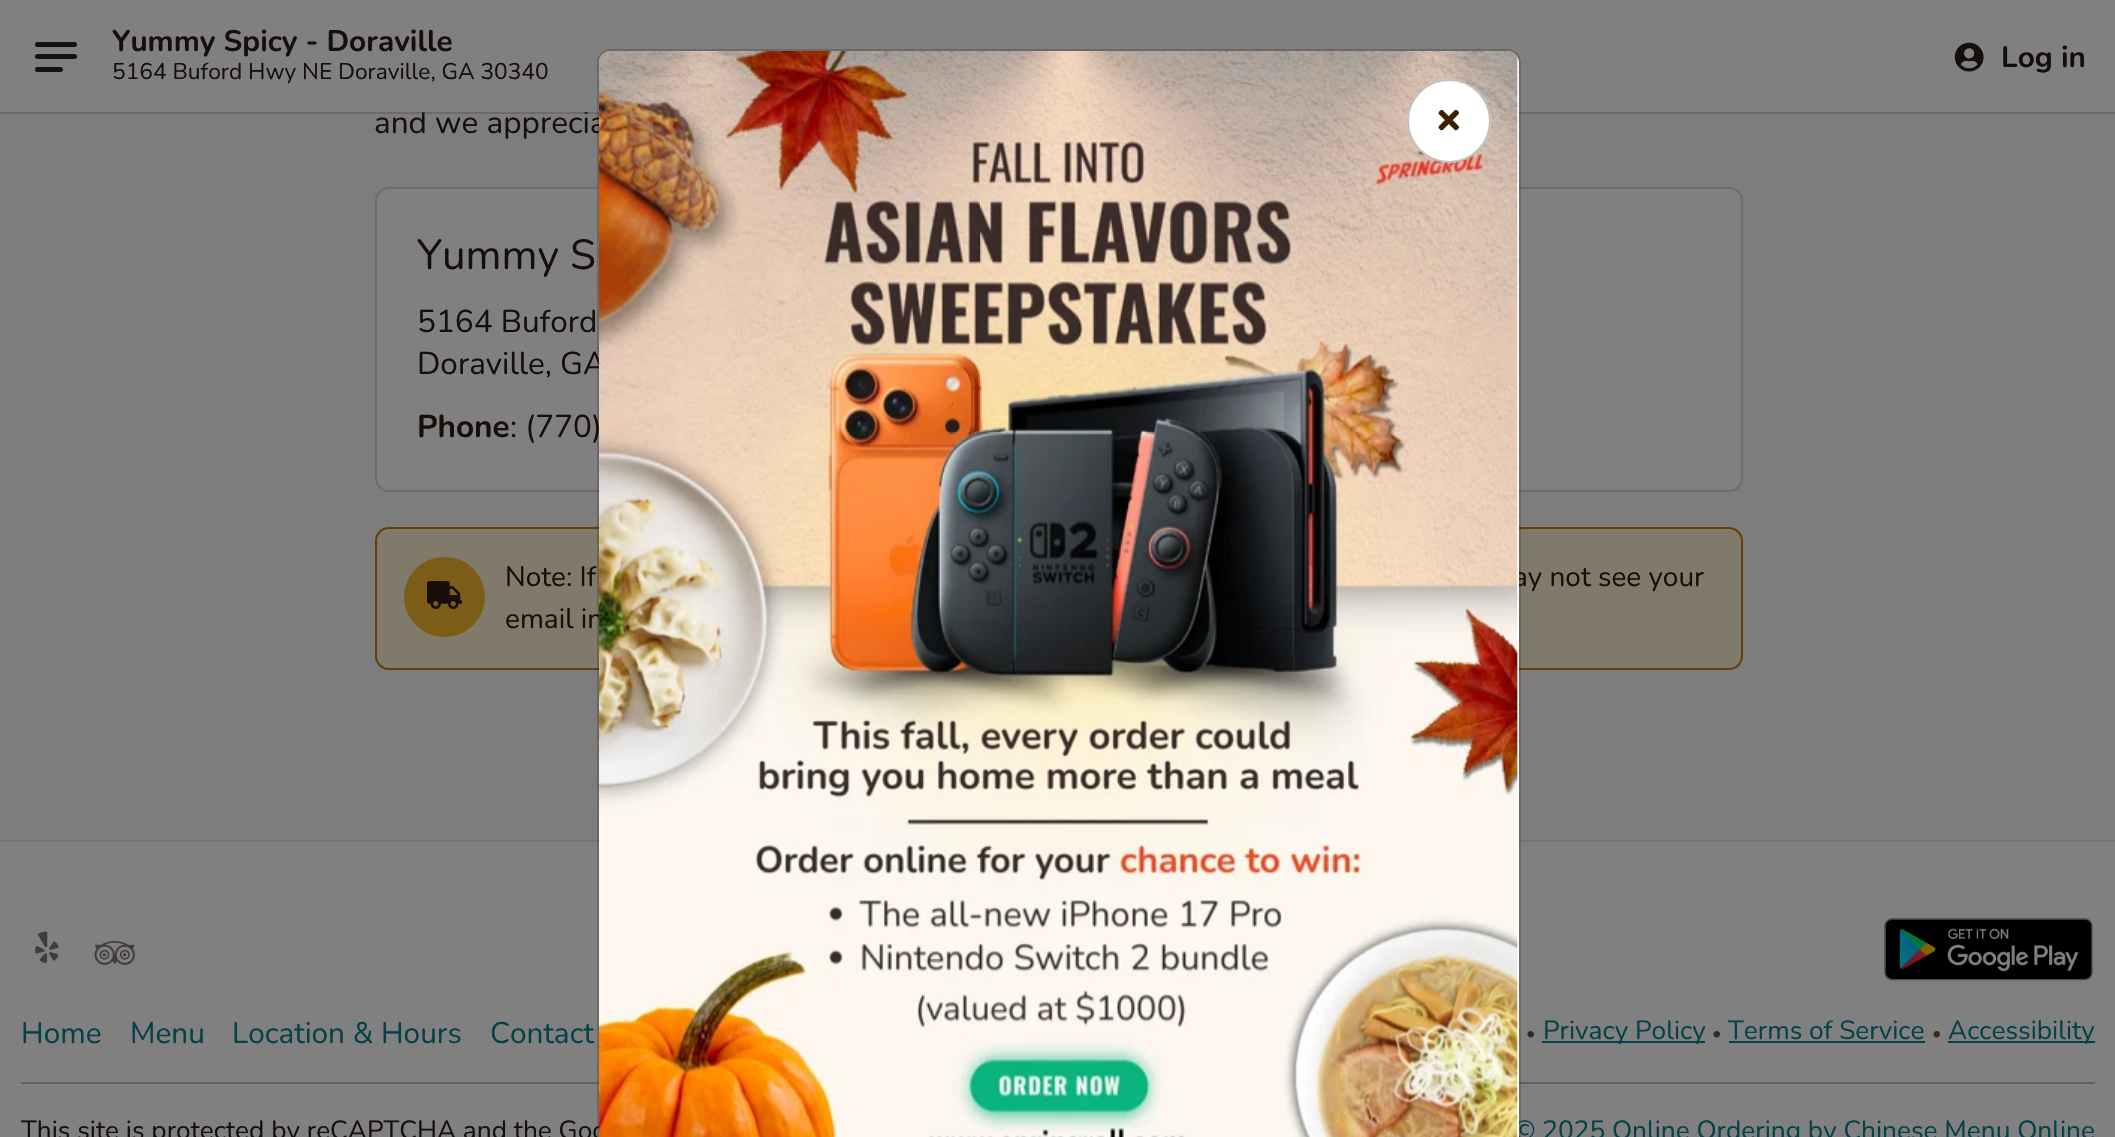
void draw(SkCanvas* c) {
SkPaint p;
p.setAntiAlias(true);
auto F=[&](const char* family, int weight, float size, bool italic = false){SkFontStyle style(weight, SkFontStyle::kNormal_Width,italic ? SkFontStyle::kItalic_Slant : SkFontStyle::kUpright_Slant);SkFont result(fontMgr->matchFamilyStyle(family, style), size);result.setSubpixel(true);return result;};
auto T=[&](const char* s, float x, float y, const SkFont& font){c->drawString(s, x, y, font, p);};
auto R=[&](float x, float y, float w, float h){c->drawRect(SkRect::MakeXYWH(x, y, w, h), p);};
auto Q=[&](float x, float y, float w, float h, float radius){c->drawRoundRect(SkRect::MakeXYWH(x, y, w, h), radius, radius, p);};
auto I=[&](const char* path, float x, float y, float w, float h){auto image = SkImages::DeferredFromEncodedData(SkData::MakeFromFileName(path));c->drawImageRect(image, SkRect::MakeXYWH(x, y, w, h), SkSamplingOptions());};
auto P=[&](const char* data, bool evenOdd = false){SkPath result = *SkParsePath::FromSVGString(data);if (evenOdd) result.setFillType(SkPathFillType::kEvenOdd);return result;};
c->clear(0xff7e7d7d);
auto f1 = F("Nunito",400,31.5);
p.setColor(0xff180f0c);
T("and we apprecia",374,133,f1);
p.setColor(0x594a473e);
c->drawPath(P("M0 112v2h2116v-112v110z"),p);
p.setColor(0xff808080);
R(0,0,2115,112);
p.setColor(0xff111315);
Q(35,42,42,5,2.5);
Q(35,54,42,5,2.5);
Q(35,67,28,5,2.5);
auto f2 = F("Nunito",700,29.75);
p.setColor(0xff180f0c);
T("Yummy Spicy - Doraville",112,51,f2);
auto f3 = F("Nunito",400,22.75);
T("5164 Buford Hwy NE Doraville, GA 30340",112,79,f3);
I("1.png",1954,42,30,30);
T("Log in",2001,67,f2);
p.setColor(0xff808080);
c->drawRoundRect(SkRect::MakeXYWH(376,188,1366,303),13,13,p);
p.setStroke(true);
p.setStrokeWidth(2);
p.setColor(0xff6d6d6d);
c->drawRoundRect(SkRect::MakeXYWH(376,188,1366,303),13,13,p);
auto f4 = F("Nunito",400,42);
p.setStroke(false);
p.setColor(0xff180f0c);
T("Yummy S",417,269,f4);
T("5164 Buford",417,332,f1);
T("Doraville, GA",417,374,f1);
auto f5 = F("Nunito",700,31.5);
T("Phone",417,437,f5);
T(": (770)",510,437,f1);
p.setColor(0xff807a6b);
c->drawRoundRect(SkRect::MakeXYWH(376,528,1366,141),13,13,p);
p.setStroke(true);
p.setColor(0xff633f06);
c->drawRoundRect(SkRect::MakeXYWH(376,528,1366,141),13,13,p);
p.setStroke(false);
p.setColor(0xff7c5d17);
Q(404,557,81,80,40);
I("2.png",427,581,35,28);
auto f6 = F("Nunito",400,28);
p.setColor(0xff180f0c);
T("Note: If",505,586,f6);
T("ay not see your",1513,586,f6);
T("email in",505,628,f6);
p.setColor(0xff808080);
R(0,842,2115,295);
p.setColor(0xff747371);
R(0,840,2115,2);
I("3.png",35,931,24,32);
I("4.png",94,941,41,24);
I("5.png",1884,918,209,63);
auto f7 = F("Nunito",400,29.75);
p.setColor(0xff044149);
T("Home",21,1043,f7);
T("Menu",130,1043,f7);
T("Location & Hours",232,1043,f7);
T("Contact",490,1043,f7);
auto f8 = F("Nunito",400,18);
p.setColor(0xff312c1f);
T("•",1526,1039,f8);
p.setColor(0xff044149);
R(1542,1041,163,2);
auto f9 = F("Nunito",400,26.25);
T("Privacy Policy",1543,1039,f9);
p.setColor(0xff312c1f);
T("•",1712,1039,f8);
p.setColor(0xff044149);
T("Terms of Service",1728,1039,f9);
R(1729,1041,196,2);
p.setColor(0xff312c1f);
T("•",1932,1039,f8);
p.setColor(0xff044149);
R(1948,1041,147,2);
T("Accessibility",1948,1039,f9);
p.setColor(0xff62605c);
R(21,1082,2074,2);
p.setColor(0xff180f0c);
T("This site is protected by reCAPTCHA and the Goo",21,1139,f9);
p.setColor(0xff044149);
T("© 2025 Online Ordering by Chinese Menu Online",1514,1139,f9);
p.setColor(0xffffffff);
c->drawPath(P("M611 51h896c6.5 0 12 5.5 12 12v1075h-920v-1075c0-6.5 5.5-12 12-12z"),p);
p.setStroke(true);
p.setColor(0x2e000000);
c->drawRoundRect(SkRect::MakeXYWH(598,50,922,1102),13,13,p);
I("6.png",599,51,919,1086);
p.setStroke(false);
p.setColor(0xffffffff);
c->drawCircle(1449,121,42,p);
p.setStroke(true);
p.setColor(0x8c948d7c);
c->drawCircle(1449,121,41,p);
I("7.png",1438,109,21,22);
}
